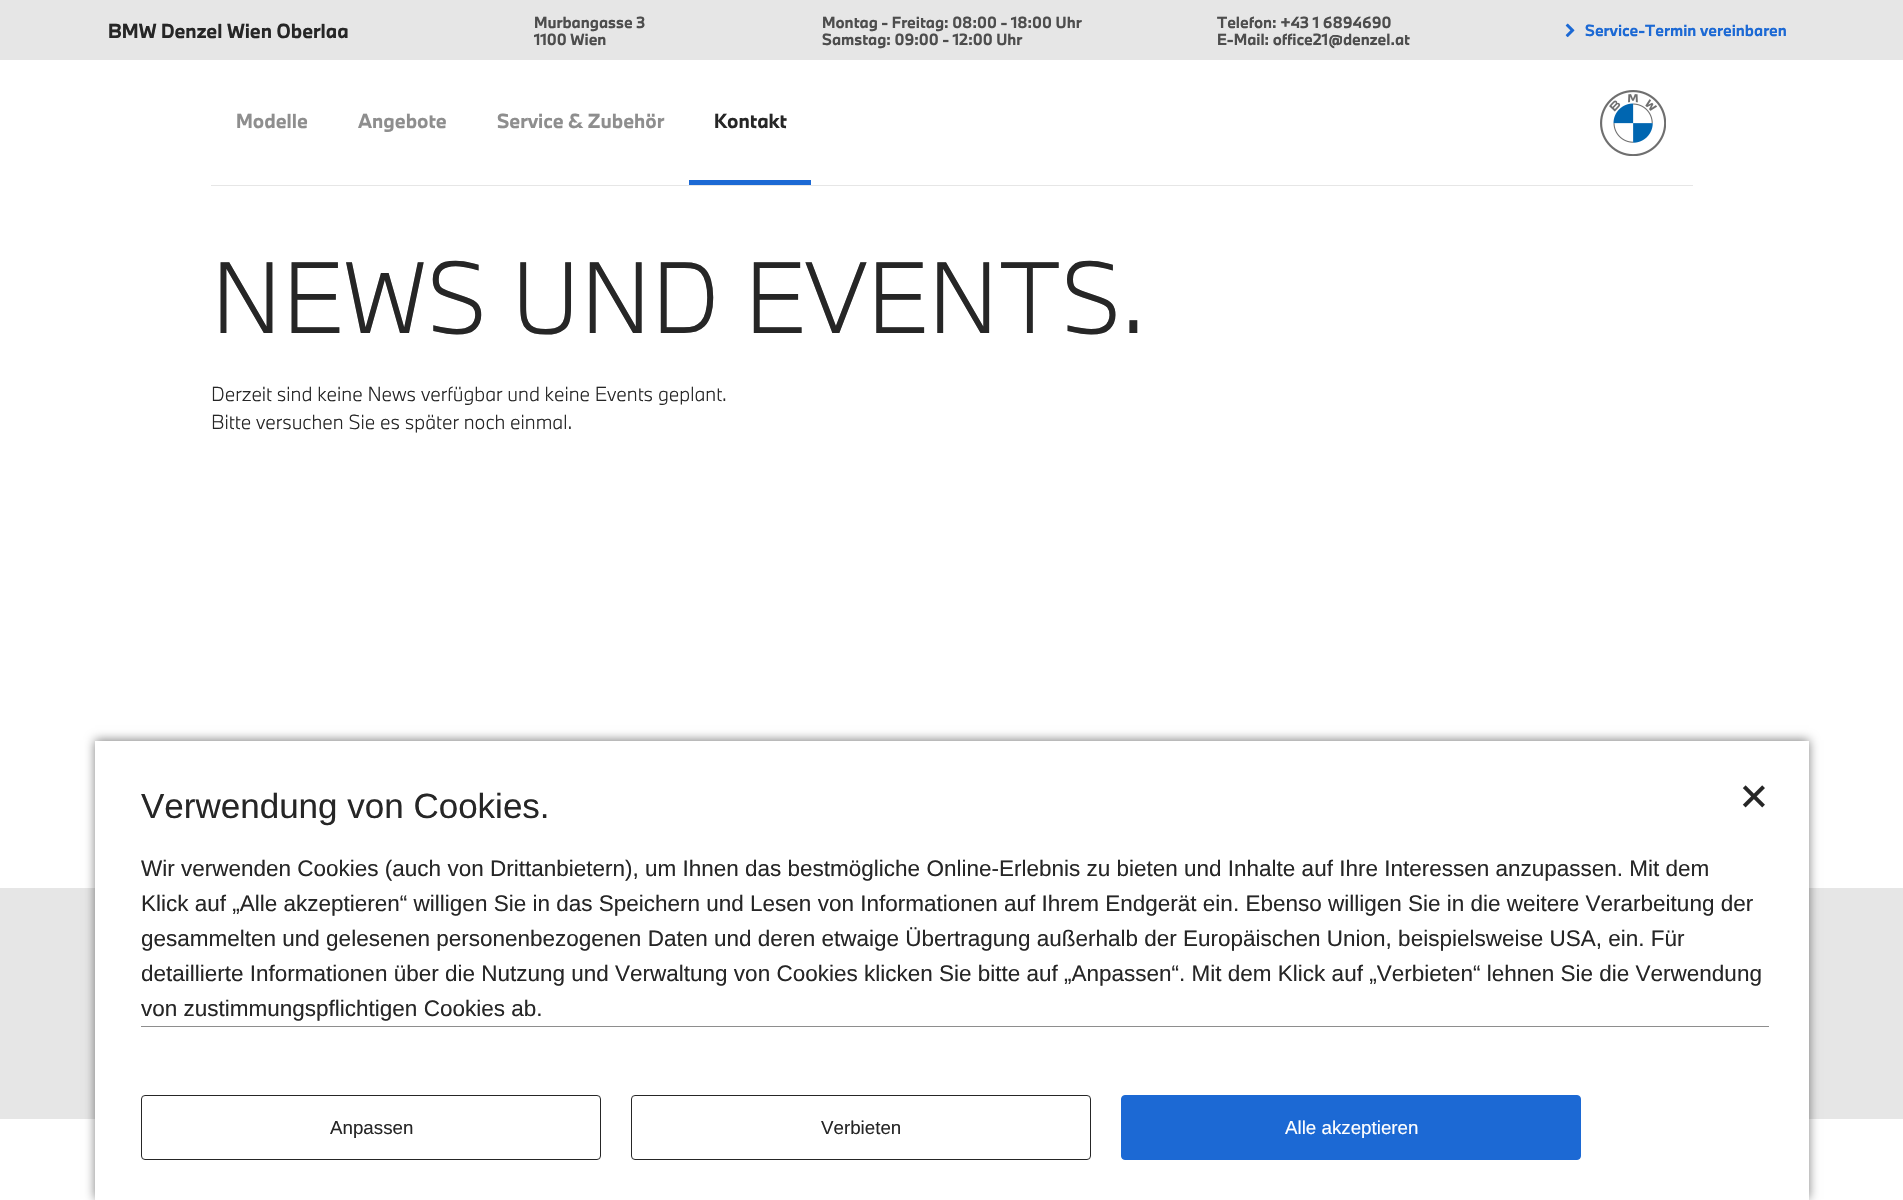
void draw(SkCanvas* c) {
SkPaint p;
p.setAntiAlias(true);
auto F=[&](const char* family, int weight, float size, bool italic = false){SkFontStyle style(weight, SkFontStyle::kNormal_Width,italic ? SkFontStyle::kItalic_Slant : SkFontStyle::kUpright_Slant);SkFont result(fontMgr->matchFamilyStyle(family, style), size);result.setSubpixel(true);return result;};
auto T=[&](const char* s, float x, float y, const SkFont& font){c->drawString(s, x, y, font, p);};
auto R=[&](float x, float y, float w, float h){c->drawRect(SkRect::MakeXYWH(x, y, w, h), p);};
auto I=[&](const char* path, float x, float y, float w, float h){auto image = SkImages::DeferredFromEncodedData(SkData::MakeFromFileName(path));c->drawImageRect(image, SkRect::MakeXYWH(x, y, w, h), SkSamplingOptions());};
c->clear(0xffffffff);
p.setColor(0xffe6e6e6);
R(0,0,1903,60);
auto f1 = F("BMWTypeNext",700,18.75);
p.setColor(0xff262626);
T("BMW Denzel Wien Oberlaa",108,38,f1);
auto f2 = F("BMWTypeNext",700,15);
p.setColor(0xff4d4d4d);
T("Murbangasse 3",534,28,f2);
T("1100 Wien",534,45,f2);
T("Montag - Freitag: 08:00 - 18:00 Uhr",822,28,f2);
T("Samstag: 09:00 - 12:00 Uhr",822,45,f2);
T("Telefon: +43 1 6894690",1217,28,f2);
T("E-Mail: office21@denzel.at",1217,45,f2);
I("1.png",1565,23,10,15);
p.setColor(0xff1c69d4);
T("Service-Termin vereinbaren",1585,36,f2);
p.setColor(0xffe6e6e6);
R(211,185,1482,1);
p.setColor(0xff8e8e8e);
T("Modelle",236,128,f1);
T("Angebote",358,128,f1);
T("Service & Zubehör",497,128,f1);
p.setColor(0xff1c69d4);
R(689,180,122,5);
p.setColor(0xff262626);
T("Kontakt",714,128,f1);
I("2.png",1600,90,66,66);
auto f3 = F("BMWTypeNext",300,93.75);
T("NEWS UND EVENTS.",211,333,f3);
auto f4 = F("BMWTypeNext",300,18.75);
T("Derzeit sind keine News verfügbar und keine Events geplant.",211,401,f4);
T("Bitte versuchen Sie es später noch einmal.",211,429,f4);
p.setColor(0xffe6e6e6);
R(0,888,1903,231);
p.setColor(0x80000000);
p.setMaskFilter(SkMaskFilter::MakeBlur(kNormal_SkBlurStyle, 5));
c->drawRect(SkRect::MakeXYWH(95,740,1714,459),p);
p.setMaskFilter(nullptr);
p.setColor(0xffffffff);
R(95,741,1714,459);
auto f5 = F("Liberation Sans",400,35);
p.setColor(0xff262626);
T("Verwendung von Cookies.",141,818,f5);
I("3.png",1742,785,23,23);
auto f6 = F("Liberation Sans",400,22.5);
T("Wir verwenden Cookies (auch von Drittanbietern), um Ihnen das bestmögliche Online-Erlebnis zu bieten und Inhalte auf Ihre Interessen anzupassen. Mit dem",141,876,f6);
T("Klick auf „Alle akzeptieren“ willigen Sie in das Speichern und Lesen von Informationen auf Ihrem Endgerät ein. Ebenso willigen Sie in die weitere Verarbeitung der",141,911,f6);
T("gesammelten und gelesenen personenbezogenen Daten und deren etwaige Übertragung außerhalb der Europäischen Union, beispielsweise USA, ein. Für",141,946,f6);
T("detaillierte Informationen über die Nutzung und Verwaltung von Cookies klicken Sie bitte auf „Anpassen“. Mit dem Klick auf „Verbieten“ lehnen Sie die Verwendung",141,981,f6);
T("von zustimmungspflichtigen Cookies ab.",141,1016,f6);
p.setColor(0xff8e8e8e);
R(141,1026,1628,1);
p.setStroke(true);
p.setStrokeWidth(1);
p.setColor(0xff262626);
c->drawRoundRect(SkRect::MakeXYWH(141.5,1095.5,459,64),3.5,3.5,p);
auto f7 = F("Liberation Sans",400,18.75);
p.setStroke(false);
T("Anpassen",330,1134,f7);
p.setStroke(true);
c->drawRoundRect(SkRect::MakeXYWH(631.5,1095.5,459,64),3.5,3.5,p);
p.setStroke(false);
T("Verbieten",821,1134,f7);
p.setColor(0xff1c69d4);
c->drawRoundRect(SkRect::MakeXYWH(1121.5,1095.5,459,64),3.5,3.5,p);
p.setStroke(true);
c->drawRoundRect(SkRect::MakeXYWH(1121.5,1095.5,459,64),3.5,3.5,p);
p.setStroke(false);
p.setColor(0xffffffff);
T("Alle akzeptieren",1285,1134,f7);
}
